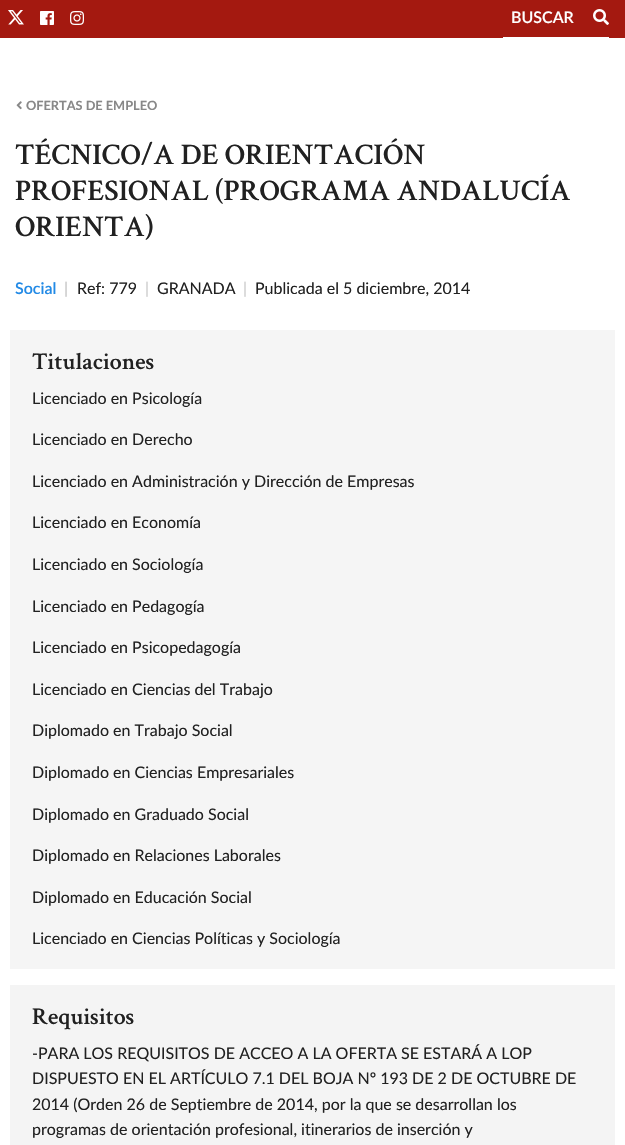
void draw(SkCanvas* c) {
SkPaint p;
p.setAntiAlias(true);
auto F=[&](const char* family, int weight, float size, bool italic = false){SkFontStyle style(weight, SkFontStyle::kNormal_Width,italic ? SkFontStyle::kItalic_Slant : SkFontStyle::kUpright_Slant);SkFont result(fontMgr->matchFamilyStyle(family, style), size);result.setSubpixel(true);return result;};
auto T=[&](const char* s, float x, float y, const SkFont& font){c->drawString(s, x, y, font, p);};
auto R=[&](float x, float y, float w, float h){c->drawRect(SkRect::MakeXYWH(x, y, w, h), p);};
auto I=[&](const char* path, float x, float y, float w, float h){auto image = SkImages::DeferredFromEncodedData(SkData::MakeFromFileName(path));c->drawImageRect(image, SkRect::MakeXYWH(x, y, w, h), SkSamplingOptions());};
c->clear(0xffffffff);
p.setColor(0xffa41910);
R(0,0,625,38);
I("1.png",8,10,16,15);
I("2.png",40,11,14,14);
I("3.png",70,11,14,14);
p.setColor(0xffffffff);
R(503,37,106,1);
auto f1 = F("Lato",600,16);
T("BUSCAR",511,23,f1);
I("4.png",593,9,16,16);
I("5.png",16,101,6,9);
auto f2 = F("Lato",700,12.75);
p.setColor(0xff888888);
T("OFERTAS DE EMPLEO",26,110,f2);
auto f3 = F("Crimson Text",600,30);
p.setColor(0xff212121);
T("TÉCNICO/A DE ORIENTACIÓN",15,164,f3);
T("PROFESIONAL (PROGRAMA ANDALUCÍA",15,200,f3);
T("ORIENTA)",15,236,f3);
p.setColor(0xff228ae6);
T("Social",15,294,f1);
p.setColor(0xffcacaca);
T("|",64,294,f1);
auto f4 = F("Lato",400,16);
p.setColor(0xff212121);
T("Ref: 779",77,294,f4);
p.setColor(0xffcacaca);
T("|",145,294,f4);
p.setColor(0xff212121);
T("GRANADA",157,294,f4);
p.setColor(0xffcacaca);
T("|",243,294,f4);
p.setColor(0xff212121);
T("Publicada el 5 diciembre, 2014",255,294,f4);
p.setColor(0xfff5f5f5);
R(10,330,605,639);
auto f5 = F("Crimson Text",600,24);
p.setColor(0xff212121);
T("Titulaciones",32,369,f5);
T("Licenciado en Psicología",32,404,f4);
T("Licenciado en Derecho",32,445,f4);
T("Licenciado en Administración y Dirección de Empresas",32,487,f4);
T("Licenciado en Economía",32,528,f4);
T("Licenciado en Sociología",32,570,f4);
T("Licenciado en Pedagogía",32,612,f4);
T("Licenciado en Psicopedagogía",32,653,f4);
T("Licenciado en Ciencias del Trabajo",32,695,f4);
T("Diplomado en Trabajo Social",32,736,f4);
T("Diplomado en Ciencias Empresariales",32,778,f4);
T("Diplomado en Graduado Social",32,820,f4);
T("Diplomado en Relaciones Laborales",32,861,f4);
T("Diplomado en Educación Social",32,903,f4);
T("Licenciado en Ciencias Políticas y Sociología",32,944,f4);
p.setColor(0xfff4f4f4);
R(10,985,605,160);
p.setColor(0xff212121);
T("Requisitos",32,1024,f5);
T("-PARA LOS REQUISITOS DE ACCEO A LA OFERTA SE ESTARÁ A LOP",32,1059,f4);
T("DISPUESTO EN EL ARTÍCULO 7.1 DEL BOJA Nº 193 DE 2 DE OCTUBRE DE",32,1084,f4);
T("2014 (Orden 26 de Septiembre de 2014, por la que se desarrollan los",32,1110,f4);
T("programas de orientación profesional, itinerarios de inserción y",32,1135,f4);
}
